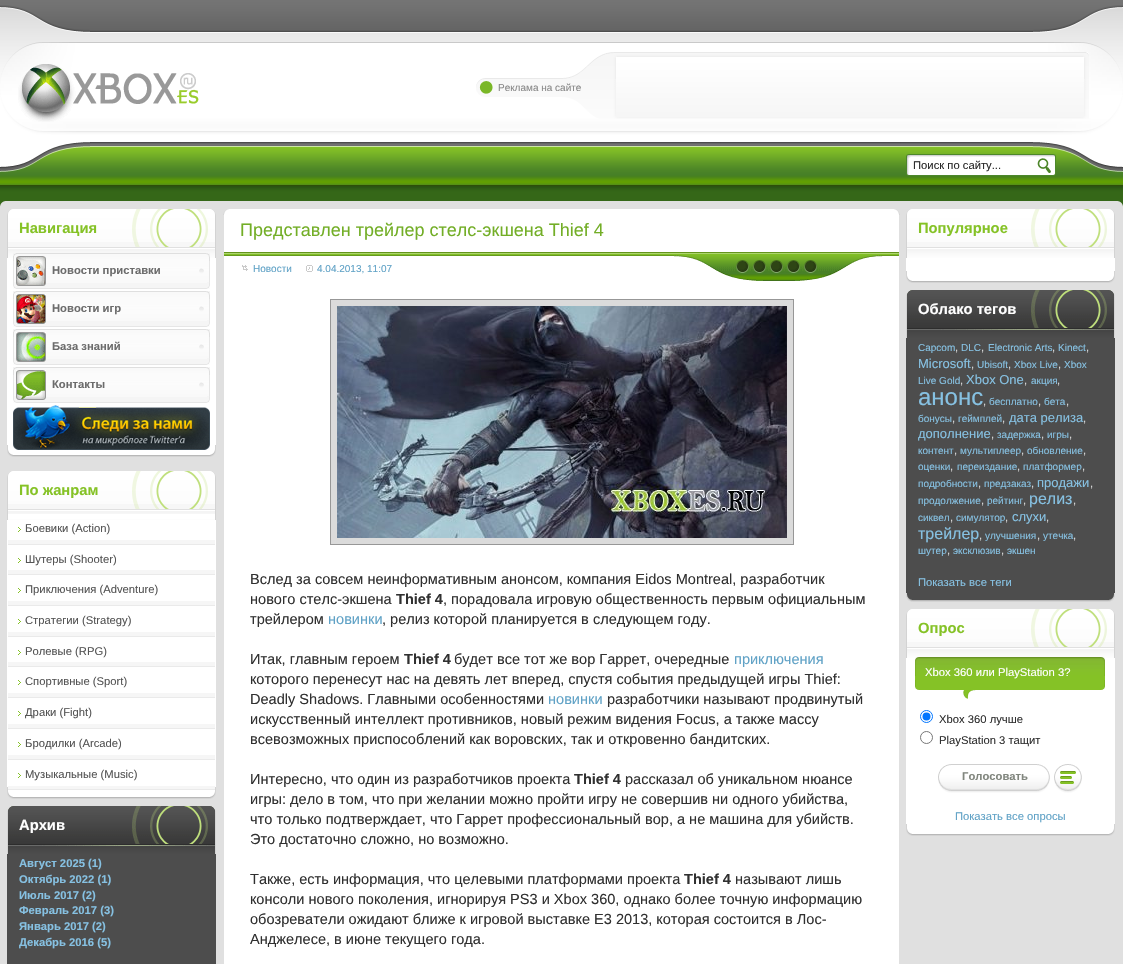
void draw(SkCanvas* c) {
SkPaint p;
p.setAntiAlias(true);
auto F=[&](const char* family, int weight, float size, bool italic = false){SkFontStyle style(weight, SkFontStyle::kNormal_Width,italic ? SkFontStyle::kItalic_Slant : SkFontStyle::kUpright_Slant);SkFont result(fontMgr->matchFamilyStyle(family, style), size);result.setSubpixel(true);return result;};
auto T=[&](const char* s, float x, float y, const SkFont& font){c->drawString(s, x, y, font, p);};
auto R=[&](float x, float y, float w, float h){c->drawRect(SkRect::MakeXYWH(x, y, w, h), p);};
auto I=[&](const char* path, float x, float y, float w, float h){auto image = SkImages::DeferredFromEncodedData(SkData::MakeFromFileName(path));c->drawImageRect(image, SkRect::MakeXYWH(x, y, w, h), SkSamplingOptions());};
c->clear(0xffffffff);
I("1.png",0,185,1123,16);
I("2.png",0,0,1123,33);
I("3.png",0,5,90,28);
I("4.png",1033,5,90,28);
I("5.png",0,33,1123,113);
I("6.png",0,42,90,104);
I("7.png",1033,42,90,104);
I("8.png",18,64,181,58);
I("9.png",476,52,613,67);
auto f1 = F("Liberation Sans",400,10);
p.setColor(0xff888888);
T("Реклама на сайте",498,91,f1);
I("10.png",0,146,1123,39);
I("11.png",0,146,90,26);
I("12.png",1033,146,90,26);
I("13.png",906,154,131,22);
auto f2 = F("Liberation Sans",400,11.25);
p.setColor(0xff292929);
T("Поиск по сайту...",913,169,f2);
I("14.png",1037,154,19,22);
p.setColor(0xffe0e0e0);
R(229,201,665,8);
R(0,215,224,749);
R(899,215,224,749);
I("15.png",0,201,229,14);
I("16.png",894,201,229,14);
p.setColor(0xffffffff);
R(7,258,209,187);
I("17.png",7,209,209,49);
I("18.png",7,445,209,12);
auto f3 = F("Liberation Sans",700,14.75);
p.setColor(0xff85c226);
T("Навигация",19,233,f3);
I("19.png",13,253,197,36);
I("20.png",16,256,30,30);
auto f4 = F("Liberation Sans",700,11.25);
p.setColor(0xff6c6c6c);
T("Новости приставки",52,274,f4);
I("19.png",13,291,197,36);
I("21.png",16,294,30,30);
T("Новости игр",52,312,f4);
I("19.png",13,329,197,36);
I("22.png",16,332,30,30);
T("База знаний",52,350,f4);
I("19.png",13,367,197,36);
I("23.png",16,370,30,30);
T("Контакты",52,388,f4);
I("24.png",13,405,197,45);
p.setColor(0xffffffff);
R(7,520,209,267);
I("17.png",7,471,209,49);
I("18.png",7,787,209,12);
p.setColor(0xff85c226);
T("По жанрам",19,495,f3);
p.setColor(0xffffffff);
R(8,514,207,5);
p.setColor(0xfff6f6f6);
R(8,540,207,4);
p.setColor(0xffeaeaea);
R(8,544,207,1);
I("25.png",18,527,3,5);
p.setColor(0xff545454);
T("Боевики (Action)",25,532,f2);
p.setColor(0xfff6f6f6);
R(8,570,207,4);
p.setColor(0xffeaeaea);
R(8,574,207,1);
I("25.png",18,558,3,5);
p.setColor(0xff545454);
T("Шутеры (Shooter)",25,563,f2);
p.setColor(0xfff6f6f6);
R(8,601,207,4);
p.setColor(0xffeaeaea);
R(8,605,207,1);
I("25.png",18,588,3,5);
p.setColor(0xff545454);
T("Приключения (Adventure)",25,593,f2);
p.setColor(0xfff6f6f6);
R(8,632,207,4);
p.setColor(0xffeaeaea);
R(8,636,207,1);
I("25.png",18,619,3,5);
p.setColor(0xff545454);
T("Стратегии (Strategy)",25,624,f2);
p.setColor(0xfff6f6f6);
R(8,662,207,4);
p.setColor(0xffeaeaea);
R(8,666,207,1);
I("25.png",18,650,3,5);
p.setColor(0xff545454);
T("Ролевые (RPG)",25,655,f2);
p.setColor(0xfff6f6f6);
R(8,693,207,4);
p.setColor(0xffeaeaea);
R(8,697,207,1);
I("25.png",18,680,3,5);
p.setColor(0xff545454);
T("Спортивные (Sport)",25,685,f2);
p.setColor(0xfff6f6f6);
R(8,724,207,4);
p.setColor(0xffeaeaea);
R(8,728,207,1);
I("25.png",18,711,3,5);
p.setColor(0xff545454);
T("Драки (Fight)",25,716,f2);
p.setColor(0xfff6f6f6);
R(8,755,207,4);
p.setColor(0xffeaeaea);
R(8,759,207,1);
I("25.png",18,742,3,5);
p.setColor(0xff545454);
T("Бродилки (Arcade)",25,747,f2);
p.setColor(0xfff6f6f6);
R(8,786,207,3);
p.setColor(0xffeaeaea);
R(8,789,207,1);
I("25.png",18,773,3,5);
p.setColor(0xff545454);
T("Музыкальные (Music)",25,778,f2);
p.setColor(0xff4d4d4d);
R(7,854,209,110);
I("26.png",7,806,209,48);
p.setColor(0xffffffff);
T("Архив",19,830,f3);
p.setColor(0xff86c1e2);
T("Август 2025 (1)",19,867,f4);
T("Октябрь 2022 (1)",19,883,f4);
T("Июль 2017 (2)",19,899,f4);
T("Февраль 2017 (3)",19,914,f4);
T("Январь 2017 (2)",19,930,f4);
T("Декабрь 2016 (5)",19,946,f4);
auto f5 = F("Liberation Sans",400,18);
p.setColor(0xff73ae27);
T("Представлен трейлер стелс-экшена Thief 4",240,236,f5);
I("27.png",224,252,675,4);
I("28.png",242,265,6,6);
p.setColor(0xff60a2c6);
T("Новости",253,272,f1);
I("29.png",306,265,7,7);
T("4.04.2013, 11:07",317,272,f1);
I("30.png",674,255,209,26);
I("31.png",736,260,81,13);
p.setColor(0xffdbdbdb);
c->drawRect(SkRect::MakeXYWH(330.5,299.5,463,245),p);
p.setStroke(true);
p.setStrokeWidth(1);
p.setColor(0xff979797);
c->drawRect(SkRect::MakeXYWH(330.5,299.5,463,245),p);
I("32.png",337,306,450,232);
auto f6 = F("Liberation Sans",400,14.55);
p.setStroke(false);
p.setColor(0xff303030);
T("Вслед за совсем неинформативным анонсом, компания Eidos Montreal, разработчик",250,584,f6);
T("нового стелс-экшена",250,604,f6);
auto f7 = F("Liberation Sans",700,14.55);
T("Thief 4",396,604,f7);
T(", порадовала игровую общественность первым официальным",443,604,f6);
T("трейлером",250,624,f6);
p.setColor(0xff60a2c6);
T("новинки",328,624,f6);
p.setColor(0xff303030);
T(", релиз которой планируется в следующем году.",382,624,f6);
T("Итак, главным героем",250,664,f6);
T("Thief 4",404,664,f7);
T("будет все тот же вор Гаррет, очередные",454,664,f6);
p.setColor(0xff60a2c6);
T("приключения",734,664,f6);
p.setColor(0xff303030);
T("которого перенесут нас на девять лет вперед, спустя события предыдущей игры Thief:",250,684,f6);
T("Deadly Shadows. Главными особенностями",250,704,f6);
p.setColor(0xff60a2c6);
T("новинки",548,704,f6);
p.setColor(0xff303030);
T("разработчики называют продвинутый",607,704,f6);
T("искусственный интеллект противников, новый режим видения Focus, а также массу",250,724,f6);
T("всевозможных приспособлений как воровских, так и откровенно бандитских.",250,744,f6);
T("Интересно, что один из разработчиков проекта",250,784,f6);
T("Thief 4",574,784,f7);
T("рассказал об уникальном нюансе",625,784,f6);
T("игры: дело в том, что при желании можно пройти игру не совершив ни одного убийства,",250,804,f6);
T("что только подтверждает, что Гаррет профессиональный вор, а не машина для убийств.",250,824,f6);
T("Это достаточно сложно, но возможно.",250,844,f6);
T("Также, есть информация, что целевыми платформами проекта",250,884,f6);
T("Thief 4",684,884,f7);
T("называют лишь",735,884,f6);
T("консоли нового поколения, игнорируя PS3 и Xbox 360, однако более точную информацию",250,904,f6);
T("обозреватели ожидают ближе к игровой выставке E3 2013, которая состоится в Лос-",250,924,f6);
T("Анджелесе, в июне текущего года.",250,944,f6);
p.setColor(0xffffffff);
R(906,258,209,13);
I("17.png",906,209,209,49);
I("18.png",906,271,209,12);
p.setColor(0xff85c226);
T("Популярное",918,233,f3);
p.setColor(0xff4d4d4d);
R(906,338,209,255);
I("26.png",906,290,209,48);
I("33.png",906,593,209,9);
p.setColor(0xffffffff);
T("Облако тегов",918,314,f3);
p.setColor(0xff86c1e2);
T("Capcom",918,351,f1);
p.setColor(0xffd9d9d9);
T(",",955,351,f2);
p.setColor(0xff86c1e2);
T("DLC",961,351,f1);
p.setColor(0xffd9d9d9);
T(",",981,351,f2);
p.setColor(0xff86c1e2);
T("Electronic Arts",988,351,f1);
p.setColor(0xffd9d9d9);
T(",",1052,351,f2);
p.setColor(0xff86c1e2);
T("Kinect",1058,351,f1);
p.setColor(0xffd9d9d9);
T(",",1086,351,f2);
auto f8 = F("Liberation Sans",400,13);
p.setColor(0xff86c1e2);
T("Microsoft",918,368,f8);
p.setColor(0xffd9d9d9);
T(",",971,368,f2);
p.setColor(0xff86c1e2);
T("Ubisoft",977,368,f1);
p.setColor(0xffd9d9d9);
T(",",1008,368,f2);
p.setColor(0xff86c1e2);
T("Xbox Live",1014,368,f1);
p.setColor(0xffd9d9d9);
T(",",1058,368,f2);
p.setColor(0xff86c1e2);
T("Xbox",1064,368,f1);
T("Live Gold",918,384,f1);
p.setColor(0xffd9d9d9);
T(",",960,384,f2);
p.setColor(0xff86c1e2);
T("Xbox One",966,384,f8);
p.setColor(0xffd9d9d9);
T(",",1024,384,f2);
p.setColor(0xff86c1e2);
T("акция",1031,384,f1);
p.setColor(0xffd9d9d9);
T(",",1057,384,f2);
auto f9 = F("Liberation Sans",400,24);
p.setColor(0xff86c1e2);
T("анонс",918,405,f9);
p.setColor(0xffd9d9d9);
T(",",983,405,f2);
p.setColor(0xff86c1e2);
T("бесплатно",989,405,f1);
p.setColor(0xffd9d9d9);
T(",",1038,405,f2);
p.setColor(0xff86c1e2);
T("бета",1044,405,f1);
p.setColor(0xffd9d9d9);
T(",",1066,405,f2);
p.setColor(0xff86c1e2);
T("бонусы",918,422,f1);
p.setColor(0xffd9d9d9);
T(",",952,422,f2);
p.setColor(0xff86c1e2);
T("геймплей",958,422,f1);
p.setColor(0xffd9d9d9);
T(",",1002,422,f2);
p.setColor(0xff86c1e2);
T("дата релиза",1009,422,f8);
p.setColor(0xffd9d9d9);
T(",",1083,422,f2);
p.setColor(0xff86c1e2);
T("дополнение",918,438,f8);
p.setColor(0xffd9d9d9);
T(",",991,438,f2);
p.setColor(0xff86c1e2);
T("задержка",997,438,f1);
p.setColor(0xffd9d9d9);
T(",",1041,438,f2);
p.setColor(0xff86c1e2);
T("игры",1047,438,f1);
p.setColor(0xffd9d9d9);
T(",",1069,438,f2);
p.setColor(0xff86c1e2);
T("контент",918,454,f1);
p.setColor(0xffd9d9d9);
T(",",954,454,f2);
p.setColor(0xff86c1e2);
T("мультиплеер",960,454,f1);
p.setColor(0xffd9d9d9);
T(",",1021,454,f2);
p.setColor(0xff86c1e2);
T("обновление",1027,454,f1);
p.setColor(0xffd9d9d9);
T(",",1083,454,f2);
p.setColor(0xff86c1e2);
T("оценки",918,470,f1);
p.setColor(0xffd9d9d9);
T(",",950,470,f2);
p.setColor(0xff86c1e2);
T("переиздание",957,470,f1);
p.setColor(0xffd9d9d9);
T(",",1017,470,f2);
p.setColor(0xff86c1e2);
T("платформер",1023,470,f1);
p.setColor(0xffd9d9d9);
T(",",1082,470,f2);
p.setColor(0xff86c1e2);
T("подробности",918,487,f1);
p.setColor(0xffd9d9d9);
T(",",978,487,f2);
p.setColor(0xff86c1e2);
T("предзаказ",984,487,f1);
p.setColor(0xffd9d9d9);
T(",",1031,487,f2);
p.setColor(0xff86c1e2);
T("продажи",1037,487,f8);
p.setColor(0xffd9d9d9);
T(",",1090,487,f2);
p.setColor(0xff86c1e2);
T("продолжение",918,504,f1);
p.setColor(0xffd9d9d9);
T(",",981,504,f2);
p.setColor(0xff86c1e2);
T("рейтинг",987,504,f1);
p.setColor(0xffd9d9d9);
T(",",1023,504,f2);
auto f10 = F("Liberation Sans",400,16);
p.setColor(0xff86c1e2);
T("релиз",1029,504,f10);
p.setColor(0xffd9d9d9);
T(",",1073,504,f2);
p.setColor(0xff86c1e2);
T("сиквел",918,521,f1);
p.setColor(0xffd9d9d9);
T(",",950,521,f2);
p.setColor(0xff86c1e2);
T("симулятор",956,521,f1);
p.setColor(0xffd9d9d9);
T(",",1005,521,f2);
p.setColor(0xff86c1e2);
T("слухи",1012,521,f8);
p.setColor(0xffd9d9d9);
T(",",1046,521,f2);
p.setColor(0xff86c1e2);
T("трейлер",918,539,f10);
p.setColor(0xffd9d9d9);
T(",",979,539,f2);
p.setColor(0xff86c1e2);
T("улучшения",985,539,f1);
p.setColor(0xffd9d9d9);
T(",",1037,539,f2);
p.setColor(0xff86c1e2);
T("утечка",1043,539,f1);
p.setColor(0xffd9d9d9);
T(",",1073,539,f2);
p.setColor(0xff86c1e2);
T("шутер",918,554,f1);
p.setColor(0xffd9d9d9);
T(",",947,554,f2);
p.setColor(0xff86c1e2);
T("эксклюзив",953,554,f1);
p.setColor(0xffd9d9d9);
T(",",1001,554,f2);
p.setColor(0xff86c1e2);
T("экшен",1007,554,f1);
T("Показать все теги",918,586,f2);
p.setColor(0xffffffff);
R(906,658,209,166);
I("17.png",906,609,209,49);
I("18.png",906,824,209,12);
p.setColor(0xff85c226);
T("Опрос",918,633,f3);
R(915,676,190,4);
I("34.png",915,657,190,19);
I("35.png",915,680,190,19);
p.setColor(0xffffffff);
T("Xbox 360 или PlayStation 3?",925,676,f2);
p.setStroke(true);
p.setColor(0xff0075ff);
c->drawCircle(926.5,716.5,6,p);
p.setStroke(false);
c->drawCircle(926.5,716.5,4,p);
p.setColor(0xff303030);
T("Xbox 360 лучше",939,723,f2);
p.setStroke(true);
p.setColor(0xff767676);
c->drawCircle(926.5,737.5,6,p);
p.setStroke(false);
p.setColor(0xff303030);
T("PlayStation 3 тащит",939,744,f2);
I("36.png",938,764,112,29);
p.setColor(0xff81867e);
T("Голосовать",962,780,f4);
I("37.png",1054,764,28,29);
p.setColor(0xff60a2c6);
T("Показать все опросы",955,820,f2);
}
